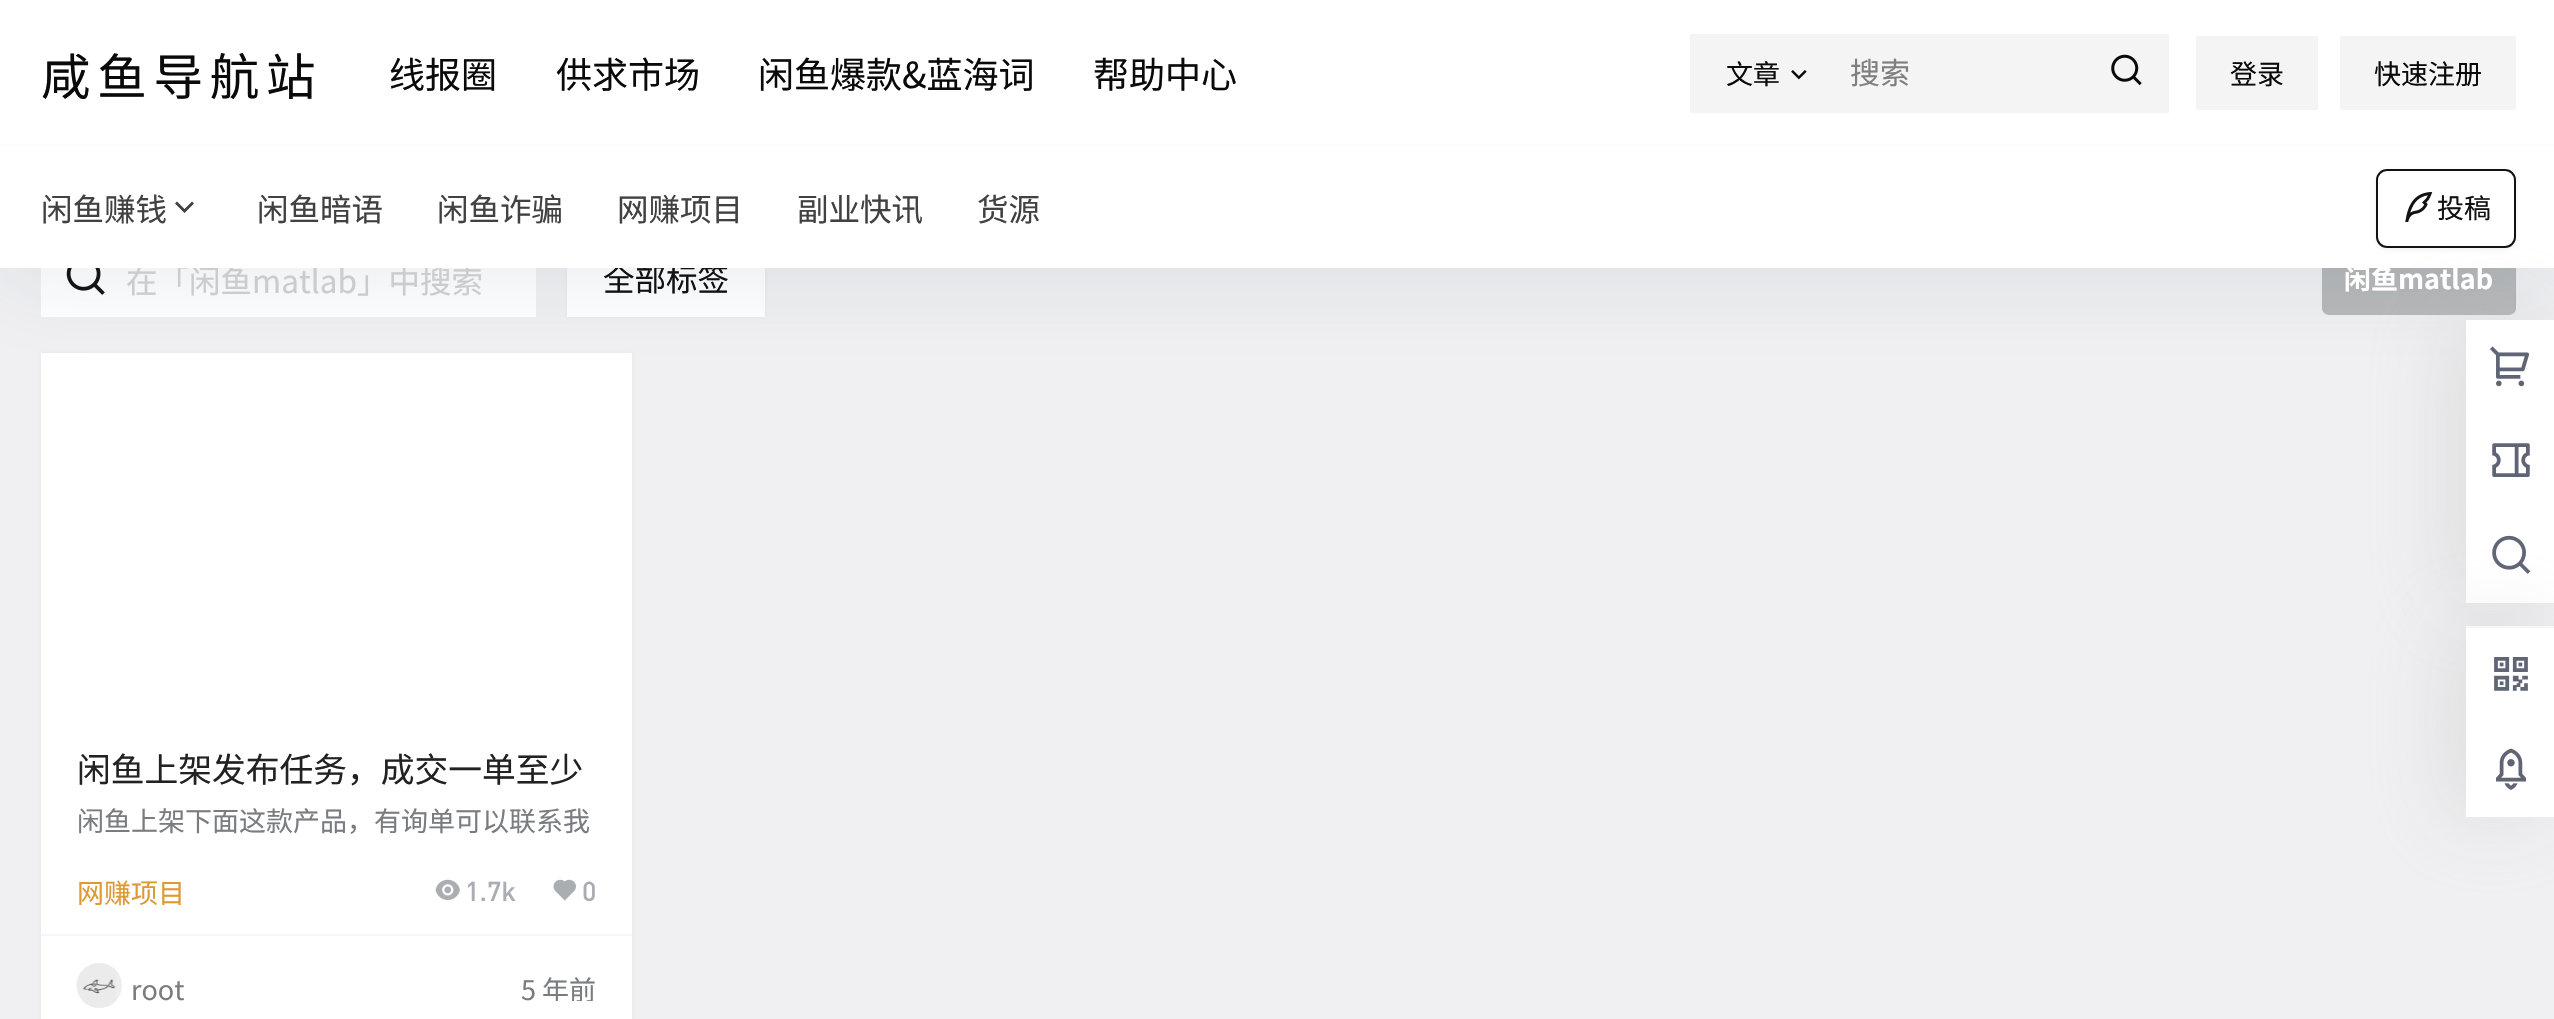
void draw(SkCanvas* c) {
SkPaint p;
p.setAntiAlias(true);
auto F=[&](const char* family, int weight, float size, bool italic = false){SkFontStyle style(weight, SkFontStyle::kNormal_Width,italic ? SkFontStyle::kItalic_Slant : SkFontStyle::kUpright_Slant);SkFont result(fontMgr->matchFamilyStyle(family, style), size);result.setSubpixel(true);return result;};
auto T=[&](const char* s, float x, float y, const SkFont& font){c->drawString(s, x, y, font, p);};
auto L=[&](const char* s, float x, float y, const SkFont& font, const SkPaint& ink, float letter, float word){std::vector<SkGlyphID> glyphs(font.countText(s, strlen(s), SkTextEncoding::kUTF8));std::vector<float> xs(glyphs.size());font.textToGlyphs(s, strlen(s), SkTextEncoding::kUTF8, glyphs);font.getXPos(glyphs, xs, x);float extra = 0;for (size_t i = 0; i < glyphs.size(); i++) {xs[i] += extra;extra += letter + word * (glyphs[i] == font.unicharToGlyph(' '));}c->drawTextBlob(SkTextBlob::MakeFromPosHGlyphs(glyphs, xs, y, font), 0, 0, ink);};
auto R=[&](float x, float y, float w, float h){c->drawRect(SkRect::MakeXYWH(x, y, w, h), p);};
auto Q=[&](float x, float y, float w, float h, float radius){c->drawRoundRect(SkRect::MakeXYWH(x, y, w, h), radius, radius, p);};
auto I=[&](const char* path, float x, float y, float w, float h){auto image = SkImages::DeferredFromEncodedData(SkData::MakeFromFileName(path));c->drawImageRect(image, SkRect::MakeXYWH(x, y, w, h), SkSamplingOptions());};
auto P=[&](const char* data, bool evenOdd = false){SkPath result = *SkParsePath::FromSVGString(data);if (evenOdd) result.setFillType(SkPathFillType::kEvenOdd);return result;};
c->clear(0xfff0f0f2);
p.setColor(0xffffffff);
R(41,268,495,49);
I("9.png",66,268,39,27);
p.setColor(0x1a627c99);
p.setMaskFilter(SkMaskFilter::MakeBlur(kNormal_SkBlurStyle, 2));
c->drawRect(SkRect::MakeXYWH(567,241,198,76),p);
p.setMaskFilter(nullptr);
p.setColor(0xffffffff);
R(567,268,198,49);
I("10.png",2322,268,193,47);
p.setColor(0x42000000);
Q(2322,243,194,72,7);
p.setColor(0x1a627c99);
p.setMaskFilter(SkMaskFilter::MakeBlur(kNormal_SkBlurStyle, 2));
c->drawRect(SkRect::MakeXYWH(41,353,591,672),p);
p.setMaskFilter(nullptr);
p.setColor(0xffffffff);
R(41,353,591,666);
p.setColor(0x1a113a5d);
p.setMaskFilter(SkMaskFilter::MakeBlur(kNormal_SkBlurStyle, 45));
c->drawRect(SkRect::MakeXYWH(0,11,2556,268),p);
p.setMaskFilter(nullptr);
p.setColor(0xffffffff);
R(0,0,2554,144);
auto f1 = F("Noto Sans CJK SC",400,49.5);
p.setColor(0xff0a0a0a);
L("咸鱼导航站",41,95,f1,p,6.75,0);
auto f2 = F("Noto Sans CJK SC",400,36);
T("线报圈",389,88,f2);
T("供求市场",556,88,f2);
T("闲鱼爆款&蓝海词",758,88,f2);
T("帮助中心",1093,88,f2);
p.setColor(0xfff4f4f4);
R(1690,34,479,79);
auto f3 = F("Noto Sans CJK SC",400,27);
p.setColor(0xff0a0a0a);
T("文章",1726,84,f3);
I("1.png",1791,70,16,10);
auto f4 = F("Noto Sans CJK SC",400,30);
p.setColor(0xff7f7f7f);
T("搜索",1850,84,f4);
I("2.png",2111,54,31,32);
p.setColor(0xfff4f4f4);
R(2196,36,122,74);
p.setColor(0xff0a0a0a);
T("登录",2230,84,f3);
p.setColor(0xfff4f4f4);
R(2340,36,176,74);
p.setColor(0xff0a0a0a);
T("快速注册",2374,84,f3);
auto f5 = F("Noto Sans CJK SC",400,31.5);
p.setColor(0xffcccccc);
T("在「闲鱼matlab」中搜索",126,293,f5);
p.setColor(0xff121212);
T("全部标签",603,291,f5);
p.setColor(0xffffffff);
R(0,146,2554,122);
p.setColor(0xfffcfcfc);
R(0,144,2554,2);
p.setColor(0xff414141);
T("闲鱼赚钱",41,221,f5);
c->drawPath(P("M184.5 209l7.5-7.5l2 2l-9.5 9.5l-9.5-9.5l2-2z"),p);
T("闲鱼暗语",257,221,f5);
T("闲鱼诈骗",437,221,f5);
T("网赚项目",617,221,f5);
T("副业快讯",797,221,f5);
T("货源",977,221,f5);
c->save();
c->clipPath(P("M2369 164h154v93h-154zm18 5h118c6 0 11 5 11 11v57c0 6-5 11-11 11h-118c-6 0-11-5-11-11v-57c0-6 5-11 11-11z",true),true);
p.setColor(0x0d000000);
p.setMaskFilter(SkMaskFilter::MakeBlur(kNormal_SkBlurStyle, 2));
c->drawRoundRect(SkRect::MakeXYWH(2376,171,140,79),11,11,p);
p.setMaskFilter(nullptr);
c->restore();
p.setStroke(true);
p.setStrokeWidth(2);
p.setColor(0xff121212);
c->drawRoundRect(SkRect::MakeXYWH(2377,170,138,77),10,10,p);
I("3.png",2405,192,28,30);
p.setStroke(false);
T("投稿",2437,218,f3);
p.setColor(0x52b5b5b5);
p.setMaskFilter(SkMaskFilter::MakeBlur(kNormal_SkBlurStyle, 39.5));
c->drawRect(SkRect::MakeXYWH(2448,320,90,283),p);
p.setMaskFilter(nullptr);
p.setColor(0xffffffff);
R(2466,320,88,283);
I("4.png",2490,346,40,41);
I("5.png",2492,443,38,34);
I("6.png",2492,535,39,39);
p.setColor(0x52b5b5b5);
p.setMaskFilter(SkMaskFilter::MakeBlur(kNormal_SkBlurStyle, 39.5));
c->drawRect(SkRect::MakeXYWH(2448,626,90,191),p);
p.setMaskFilter(nullptr);
p.setColor(0xffffffff);
R(2466,628,88,189);
p.setColor(0xfff5f6f7);
R(2466,626,88,2);
I("7.png",2494,657,34,34);
I("8.png",2496,748,30,42);
auto f6 = F("Noto Sans CJK SC",700,27);
p.setColor(0xffffffff);
T("闲鱼matlab",2344,289,f6);
auto f7 = F("Noto Sans CJK SC",400,33.75);
p.setColor(0xff222222);
T("闲鱼上架发布任务，成交一单至少",77,782,f7);
p.setColor(0xff797c80);
T("闲鱼上架下面这款产品，有询单可以联系我",77,831,f3);
p.setColor(0xffdd9933);
T("网赚项目",77,903,f3);
I("11.png",435,879,25,21);
auto f8 = F("DIN",500,27);
p.setColor(0xffaaaeb3);
T("1.7k",465,901,f8);
I("12.png",553,879,23,22);
T("0",582,901,f8);
p.setColor(0xfff5f6f7);
R(41,934,591,2);
p.setColor(0xffeeeeee);
c->drawCircle(99.5,985.5,22.5,p);
I("13.png",76,963,40,45);
p.setColor(0xff797c80);
T("root",131,1000,f3);
c->save();
c->clipRect(SkRect::MakeXYWH(522,970,74,31));
T("5 年前",521,1000,f3);
c->restore();
}
